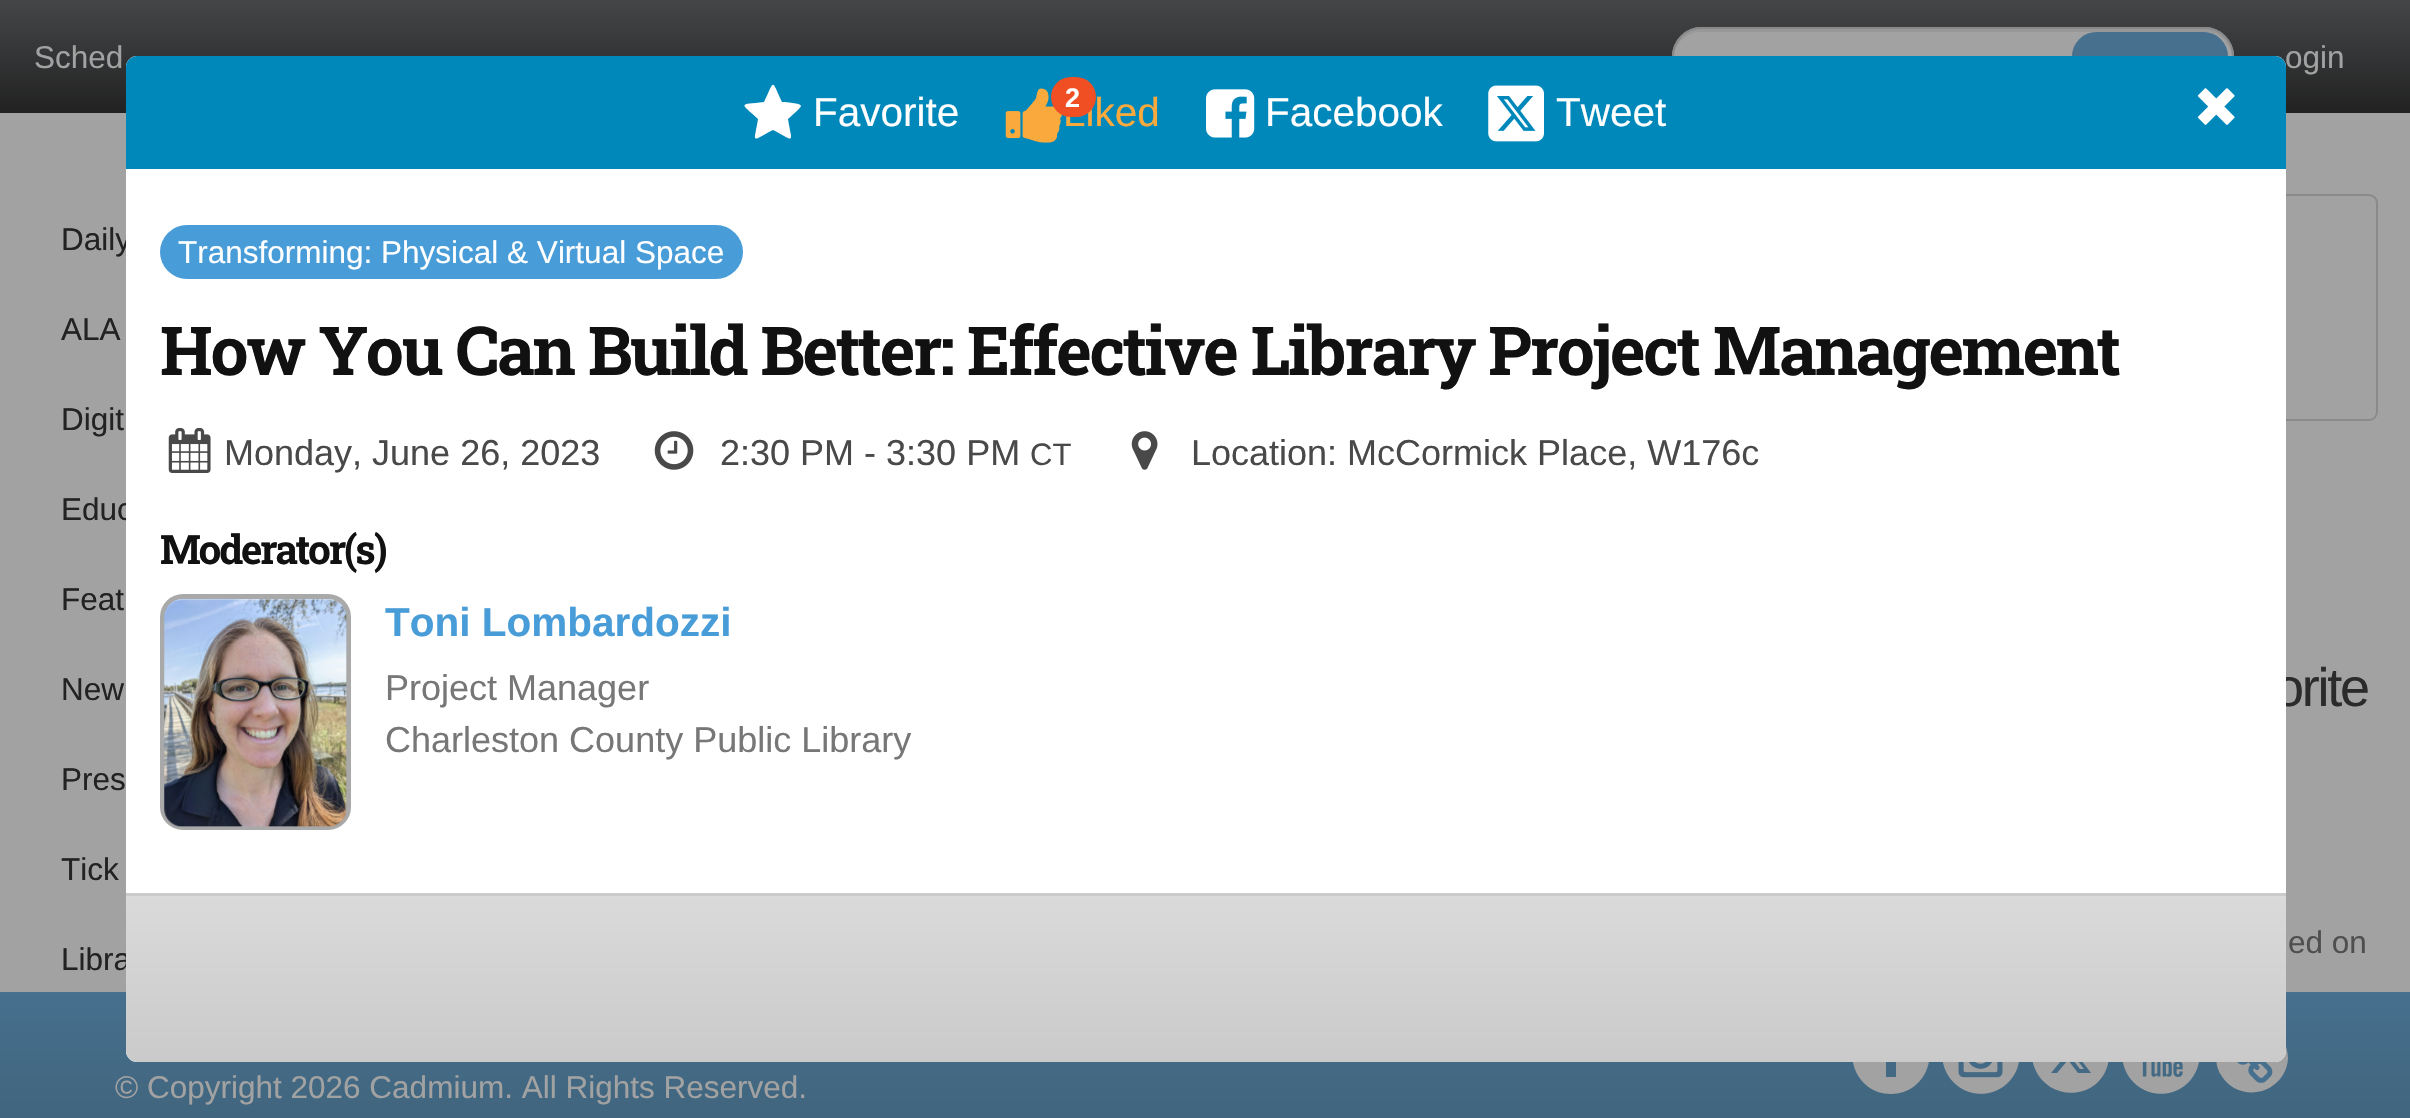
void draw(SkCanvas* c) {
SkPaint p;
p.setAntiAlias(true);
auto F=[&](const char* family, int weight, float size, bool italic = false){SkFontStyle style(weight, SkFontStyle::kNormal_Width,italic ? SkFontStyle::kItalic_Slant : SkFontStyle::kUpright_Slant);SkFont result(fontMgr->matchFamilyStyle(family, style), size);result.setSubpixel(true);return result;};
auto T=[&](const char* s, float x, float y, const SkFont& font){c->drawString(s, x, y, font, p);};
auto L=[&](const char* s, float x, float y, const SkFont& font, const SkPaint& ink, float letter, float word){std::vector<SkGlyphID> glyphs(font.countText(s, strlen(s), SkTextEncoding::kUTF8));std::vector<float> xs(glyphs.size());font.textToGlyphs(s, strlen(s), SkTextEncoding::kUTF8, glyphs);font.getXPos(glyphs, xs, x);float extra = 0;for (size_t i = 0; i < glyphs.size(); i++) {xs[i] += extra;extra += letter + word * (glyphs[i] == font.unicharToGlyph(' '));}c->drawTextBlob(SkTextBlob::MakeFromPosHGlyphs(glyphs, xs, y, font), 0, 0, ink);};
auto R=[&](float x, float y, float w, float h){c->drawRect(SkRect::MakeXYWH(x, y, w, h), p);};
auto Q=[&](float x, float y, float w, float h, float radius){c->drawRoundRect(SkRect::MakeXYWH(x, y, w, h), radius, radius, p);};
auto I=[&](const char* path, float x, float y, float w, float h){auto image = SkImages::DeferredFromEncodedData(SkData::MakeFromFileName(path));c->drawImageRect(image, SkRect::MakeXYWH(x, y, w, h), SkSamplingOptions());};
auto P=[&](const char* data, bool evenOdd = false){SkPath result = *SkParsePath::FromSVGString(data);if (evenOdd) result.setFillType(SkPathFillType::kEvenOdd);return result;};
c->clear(0xffa2a2a2);
{
const SkColor colors[] = {0xff444648,0xff222222};
const float stops[] = {0,1};
const SkPoint ends[] = {{1206,0}, {1206,113}};
p.setShader(SkGradientShader::MakeLinear(ends, colors, stops, 2, SkTileMode::kClamp));
p.setAlpha(255);
}
R(0,0,2410,113);
auto f1 = F("Liberation Sans",400,31.5);
p.setShader(nullptr);
p.setColor(0xffa2a2a2);
T("Sched",34,68,f1);
Q(1672,27,562,59,29.5);
p.setColor(0xff989898);
c->drawPath(P("M1701 32h504c15 0 26 11 27 25c1-15-12-28-27-28h-504c-15 0-28 13-27 28c1-14 12-25 27-25z"),p);
p.setStroke(true);
p.setStrokeWidth(2);
p.setColor(0xff888888);
c->drawRoundRect(SkRect::MakeXYWH(1673,28,560,57),28.5,28.5,p);
p.setStroke(false);
p.setColor(0xff46708e);
Q(2072,32,156,49,24.5);
p.setColor(0xffa2a2a2);
T("ogin",2285,68,f1);
p.setColor(0xff222222);
T("Daily",61,250,f1);
T("Educ",61,520,f1);
T("Libra",61,970,f1);
p.setStroke(true);
p.setColor(0xff8a8a8a);
c->drawRoundRect(SkRect::MakeXYWH(541,195,1836,225),8,8,p);
auto f2 = F("Liberation Sans",400,54);
p.setStroke(false);
p.setColor(0xff2b2b2b);
L("orite",2274,706,f2,p,-2.25,0);
{
const SkColor colors[] = {0xff46708e,0xff41657e};
const float stops[] = {0,1};
const SkPoint ends[] = {{1206,992}, {1206,1118}};
p.setShader(SkGradientShader::MakeLinear(ends, colors, stops, 2, SkTileMode::kClamp));
p.setAlpha(255);
}
R(0,992,2410,126);
p.setShader(nullptr);
p.setColor(0xffa2a2a2);
c->drawPath(P("M1891 1016c8 0 16 3 23 8c30 22 14 70-23 70c-37 0-53-48-23-70c6-5 15-8 23-8zm14 17c-6 0-17 0-19 9v6h-7v10h7v19h10v-19h7v-10h-7c0-7 3-5 9-5z"),p);
c->drawPath(P("M2057 1039h4l23 30h-4zm49 0c4 8 4 17 2 25c-9 36-58 39-73 5c-3-7-4-15-2-22c7-37 58-42 73-8zm-28 34h13l-16-21l14-16h-7l-10 12l-9-12h-13l15 20l-14 17h6l11-13z"),p);
c->drawPath(P("M2283 1039c3 6 5 13 5 20c-3 35-49 46-67 16c-4-6-5-13-5-20c3-35 49-46 67-16z"),p);
p.setColor(0xffffffff);
Q(126,56,2160,1006,11);
p.setColor(0xff0088bb);
c->drawPath(P("M137 56h2138c6 0 11 5 11 11v102h-2160v-102c0-6 5-11 11-11z"),p);
p.setColor(0xffffffff);
c->drawPath(P("M801 106c0 2-11 11-13 13c4 25 8 23-15 11c-23 12-19 14-15-11c-18-17-20-14 6-17c11-23 7-23 18 0c3 0 19 1 19 4z"),p);
auto f3 = F("Liberation Sans",400,40.5);
T("Favorite",813,126,f3);
I("1.png",1005,88,57,55);
p.setColor(0xfffaa93d);
T("Liked",1063,126,f3);
p.setColor(0xfff04e23);
Q(1051,77,45,40,20);
auto f4 = F("Liberation Sans",700,27);
p.setColor(0xffffffff);
T("2",1065,107,f4);
I("2.png",1206,89,49,49);
T("Facebook",1265,126,f3);
I("3.png",1488,85,56,57);
T("Tweet",1556,126,f3);
I("4.png",2197,88,38,37);
p.setColor(0xff489cd8);
Q(160,225,583,54,27);
p.setColor(0xffffffff);
T("Transforming: Physical & Virtual Space",178,263,f1);
auto f5 = F("Roboto Slab",700,67.5);
p.setColor(0xff111111);
L("How You Can Build Better: Effective Library Project Management",160,375,f5,p,-2.25,0);
I("5.png",168,428,43,45);
auto f6 = F("Liberation Sans",400,36);
p.setColor(0xff494949);
T("Monday, June 26, 2023",224,465,f6);
I("6.png",654,431,40,39);
T("2:30 PM - 3:30 PM",720,465,f6);
auto f7 = F("Liberation Sans",400,31);
T("CT",1030,465,f7);
I("7.png",1131,431,27,39);
T("Location: McCormick Place, W176c",1191,465,f6);
auto f8 = F("Roboto Slab",700,40.5);
p.setColor(0xff111111);
L("Moderator(s)",160,564,f8,p,-2.25,0);
p.setStroke(true);
p.setStrokeWidth(5);
p.setColor(0xffa9a9a9);
c->drawRoundRect(SkRect::MakeXYWH(162.5,596.5,186,231),20.5,20.5,p);
I("8.png",164,599,183,228);
auto f9 = F("Liberation Sans",700,40.5);
p.setStroke(false);
p.setColor(0xff489cd8);
T("Toni Lombardozzi",385,636,f9);
p.setColor(0xff777777);
T("Project Manager",385,700,f6);
T("Charleston County Public Library",385,752,f6);
{
const SkColor colors[] = {0xffdadada,0xffcacaca};
const float stops[] = {0,1};
const SkPoint ends[] = {{1206,730}, {1206,896}};
p.setShader(SkGradientShader::MakeLinear(ends, colors, stops, 2, SkTileMode::kClamp));
p.setAlpha(255);
}
R(126,895,2160,1);
{
const SkColor colors[] = {0xffdadada,0xffcacaca};
const float stops[] = {0,1};
const SkPoint ends[] = {{1206,896}, {1206,1063}};
p.setShader(SkGradientShader::MakeLinear(ends, colors, stops, 2, SkTileMode::kClamp));
p.setAlpha(255);
}
c->drawPath(P("M126 896h2160v155c0 6-5 11-11 11h-2138c-6 0-11-5-11-11z"),p);
p.setShader(nullptr);
p.setColor(0xffcccccc);
R(126,893,2160,2);
p.setColor(0xff222222);
T("ALA",61,340,f1);
T("Digit",61,430,f1);
T("Feat",61,610,f1);
T("New",61,700,f1);
T("Pres",61,790,f1);
T("Tick",61,880,f1);
p.setColor(0xff4f4f4f);
T("ed on",2288,953,f1);
p.setColor(0xffa2a2a2);
T("© Copyright 2026 Cadmium. All Rights Reserved.",115,1098,f1);
I("9.png",1943,1062,76,32);
I("10.png",2123,1062,76,32);
I("11.png",2237,1062,36,21);
}
